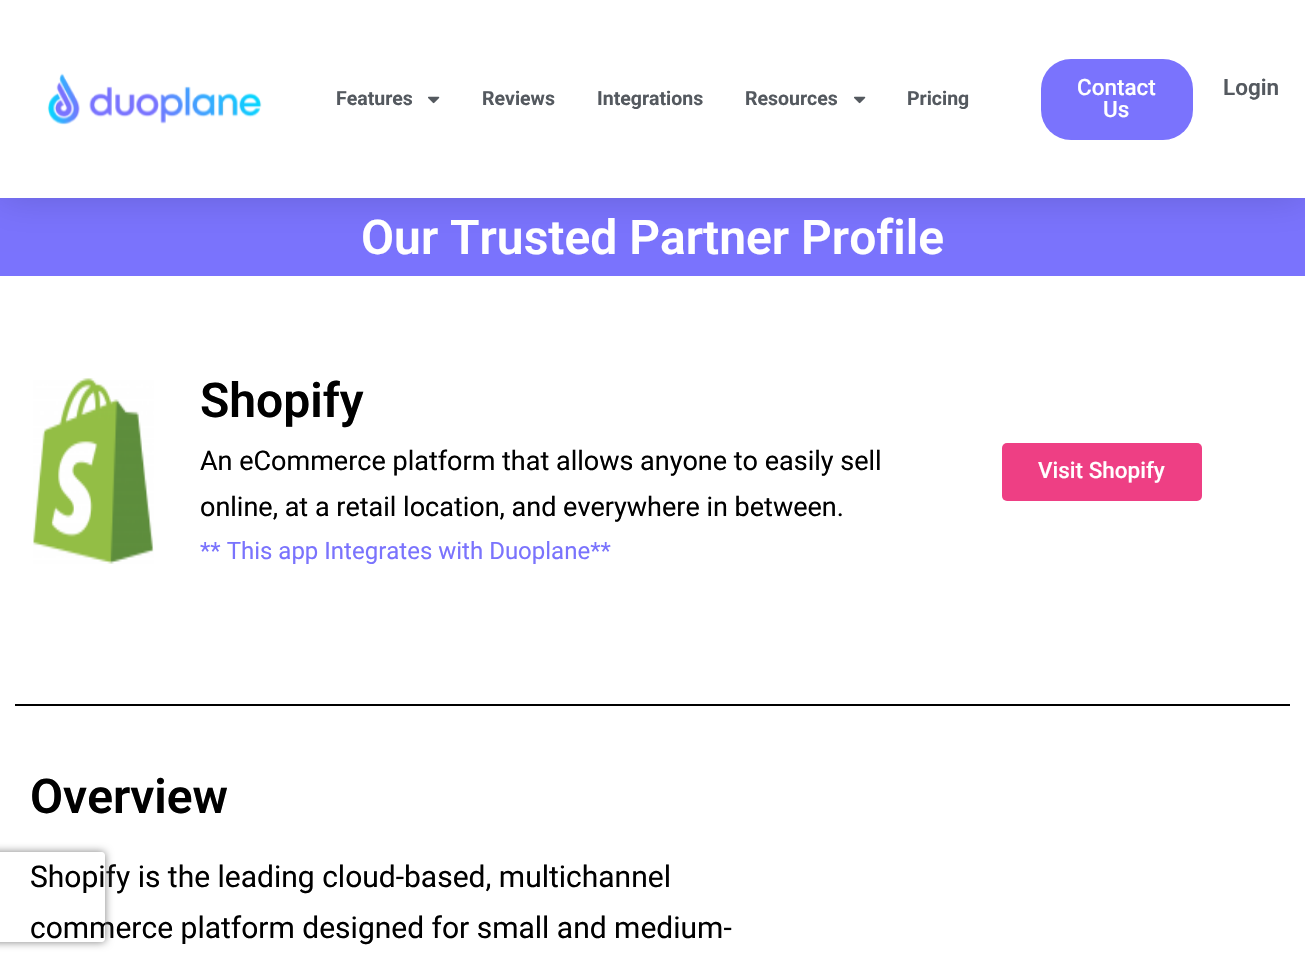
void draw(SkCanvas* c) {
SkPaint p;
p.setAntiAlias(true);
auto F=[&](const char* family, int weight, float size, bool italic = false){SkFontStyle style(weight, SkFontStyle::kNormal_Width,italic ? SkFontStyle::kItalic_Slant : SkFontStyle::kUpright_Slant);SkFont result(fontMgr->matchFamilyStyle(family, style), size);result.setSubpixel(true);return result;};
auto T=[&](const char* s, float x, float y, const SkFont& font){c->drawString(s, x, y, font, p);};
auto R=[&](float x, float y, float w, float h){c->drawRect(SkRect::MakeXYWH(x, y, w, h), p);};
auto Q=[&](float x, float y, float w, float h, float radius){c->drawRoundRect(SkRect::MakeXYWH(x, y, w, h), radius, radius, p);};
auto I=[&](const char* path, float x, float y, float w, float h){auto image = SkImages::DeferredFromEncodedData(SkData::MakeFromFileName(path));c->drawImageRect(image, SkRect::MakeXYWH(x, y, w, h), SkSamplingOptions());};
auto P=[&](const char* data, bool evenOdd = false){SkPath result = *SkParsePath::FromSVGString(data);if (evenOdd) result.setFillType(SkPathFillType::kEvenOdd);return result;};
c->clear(0xff7a73fd);
p.setColor(0x26000000);
p.setMaskFilter(SkMaskFilter::MakeBlur(kNormal_SkBlurStyle, 18));
c->drawRect(SkRect::MakeXYWH(0,0,1305,198),p);
p.setMaskFilter(nullptr);
p.setColor(0xffffffff);
R(0,0,1305,198);
I("1.png",47,73,215,52);
auto f1 = F("Roboto",700,19.5);
p.setColor(0xff54595f);
T("Features",336,105,f1);
I("2.png",428,96,12,8);
T("Reviews",482,105,f1);
T("Integrations",597,105,f1);
T("Resources",745,105,f1);
I("2.png",854,96,12,8);
T("Pricing",907,105,f1);
p.setColor(0xff7a73fd);
Q(1041,59,152,81,30);
auto f2 = F("Roboto",500,22.5);
p.setColor(0xffffffff);
T("Contact",1077,95,f2);
T("Us",1103,117,f2);
auto f3 = F("Roboto",600,22.5);
p.setColor(0xff54595f);
T("Login",1223,95,f3);
auto f4 = F("Roboto",600,48);
p.setColor(0xffffffff);
T("Our Trusted Partner Profile",361,254,f4);
R(0,276,1305,687);
I("3.png",33,378,121,186);
p.setColor(0xff000000);
T("Shopify",200,417,f4);
auto f5 = F("Roboto",400,27);
T("An eCommerce platform that allows anyone to easily sell",200,470,f5);
T("online, at a retail location, and everywhere in between.",200,516,f5);
auto f6 = F("Roboto",400,24);
p.setColor(0xff7a73fd);
T("** This app Integrates with Duoplane**",200,559,f6);
p.setColor(0xffee3f84);
Q(1002,443,200,58,5);
p.setColor(0xffffffff);
T("Visit Shopify",1038,478,f2);
p.setColor(0xff000000);
R(15,704,1275,2);
T("Overview",30,813,f4);
auto f7 = F("Roboto",400,30);
T("Shopify is the leading cloud-based, multichannel",30,887,f7);
T("commerce platform designed for small and medium-",30,938,f7);
c->save();
c->clipPath(P("M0 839h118v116h-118zm-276 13h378c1.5 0 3 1.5 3 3v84c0 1.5-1.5 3-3 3h-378c-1.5 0-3-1.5-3-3v-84c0-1.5 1.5-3 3-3z",true),true);
p.setColor(0xff808080);
p.setMaskFilter(SkMaskFilter::MakeBlur(kNormal_SkBlurStyle, 4));
c->drawRoundRect(SkRect::MakeXYWH(-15,852,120,90),3,3,p);
p.setMaskFilter(nullptr);
c->restore();
}
